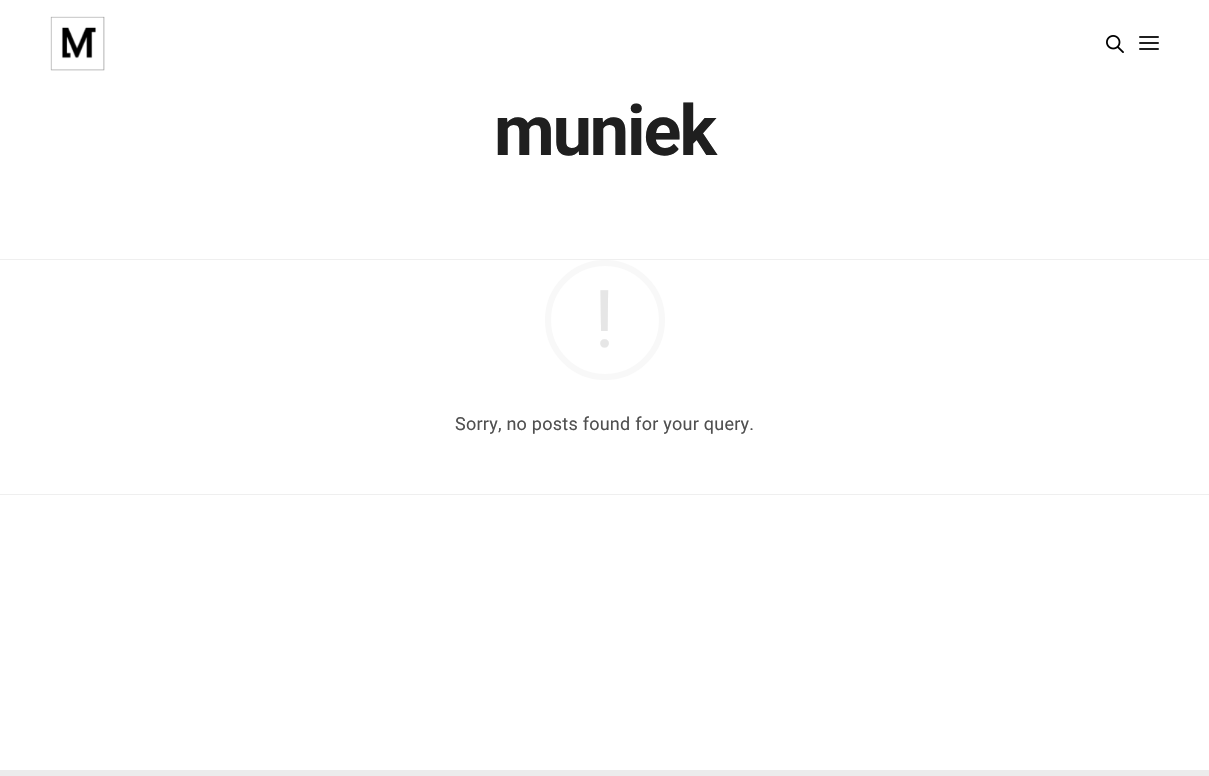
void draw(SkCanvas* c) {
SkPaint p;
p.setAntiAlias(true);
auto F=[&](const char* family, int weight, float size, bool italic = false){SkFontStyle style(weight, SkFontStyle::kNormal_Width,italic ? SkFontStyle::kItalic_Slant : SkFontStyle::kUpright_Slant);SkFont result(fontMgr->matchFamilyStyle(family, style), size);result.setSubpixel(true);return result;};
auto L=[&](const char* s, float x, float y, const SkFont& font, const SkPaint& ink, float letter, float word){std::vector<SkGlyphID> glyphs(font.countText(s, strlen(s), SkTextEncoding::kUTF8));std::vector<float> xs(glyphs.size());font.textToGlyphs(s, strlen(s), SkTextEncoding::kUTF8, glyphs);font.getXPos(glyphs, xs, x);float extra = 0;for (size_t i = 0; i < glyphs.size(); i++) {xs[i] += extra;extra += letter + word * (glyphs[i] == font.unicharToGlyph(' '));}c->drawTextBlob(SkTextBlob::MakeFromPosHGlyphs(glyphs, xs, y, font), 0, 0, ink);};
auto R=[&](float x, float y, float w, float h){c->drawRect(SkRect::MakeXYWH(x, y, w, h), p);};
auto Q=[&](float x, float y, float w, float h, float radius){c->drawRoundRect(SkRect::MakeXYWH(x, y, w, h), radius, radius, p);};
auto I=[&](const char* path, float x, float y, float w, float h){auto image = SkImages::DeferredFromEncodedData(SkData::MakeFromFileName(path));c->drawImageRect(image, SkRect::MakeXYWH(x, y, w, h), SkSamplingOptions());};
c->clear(0xffffffff);
I("1.png",50,16,55,55);
I("2.png",1106,35,18,18);
p.setColor(0xff1f1f1f);
Q(1139,36,20,2,1);
Q(1139,42,20,2,1);
Q(1139,48,20,2,1);
auto f1 = F("Roboto",700,70);
L("muniek",494,155,f1,p,-2,0);
p.setColor(0xffefefef);
R(0,259,1209,1);
p.setStroke(true);
p.setStrokeWidth(6);
p.setColor(0xfff8f8f8);
c->drawCircle(605,320,57,p);
auto f2 = F("Roboto",400,80);
p.setStroke(false);
p.setColor(0xffe6e6e6);
L("!",594,347,f2,p,.25,0);
auto f3 = F("Roboto",400,18);
p.setColor(0xff505050);
L("Sorry, no posts found for your query.",455,430,f3,p,.25,0);
p.setColor(0xffefefef);
R(0,494,1209,1);
p.setColor(0xffececec);
R(0,770,1209,6);
}
